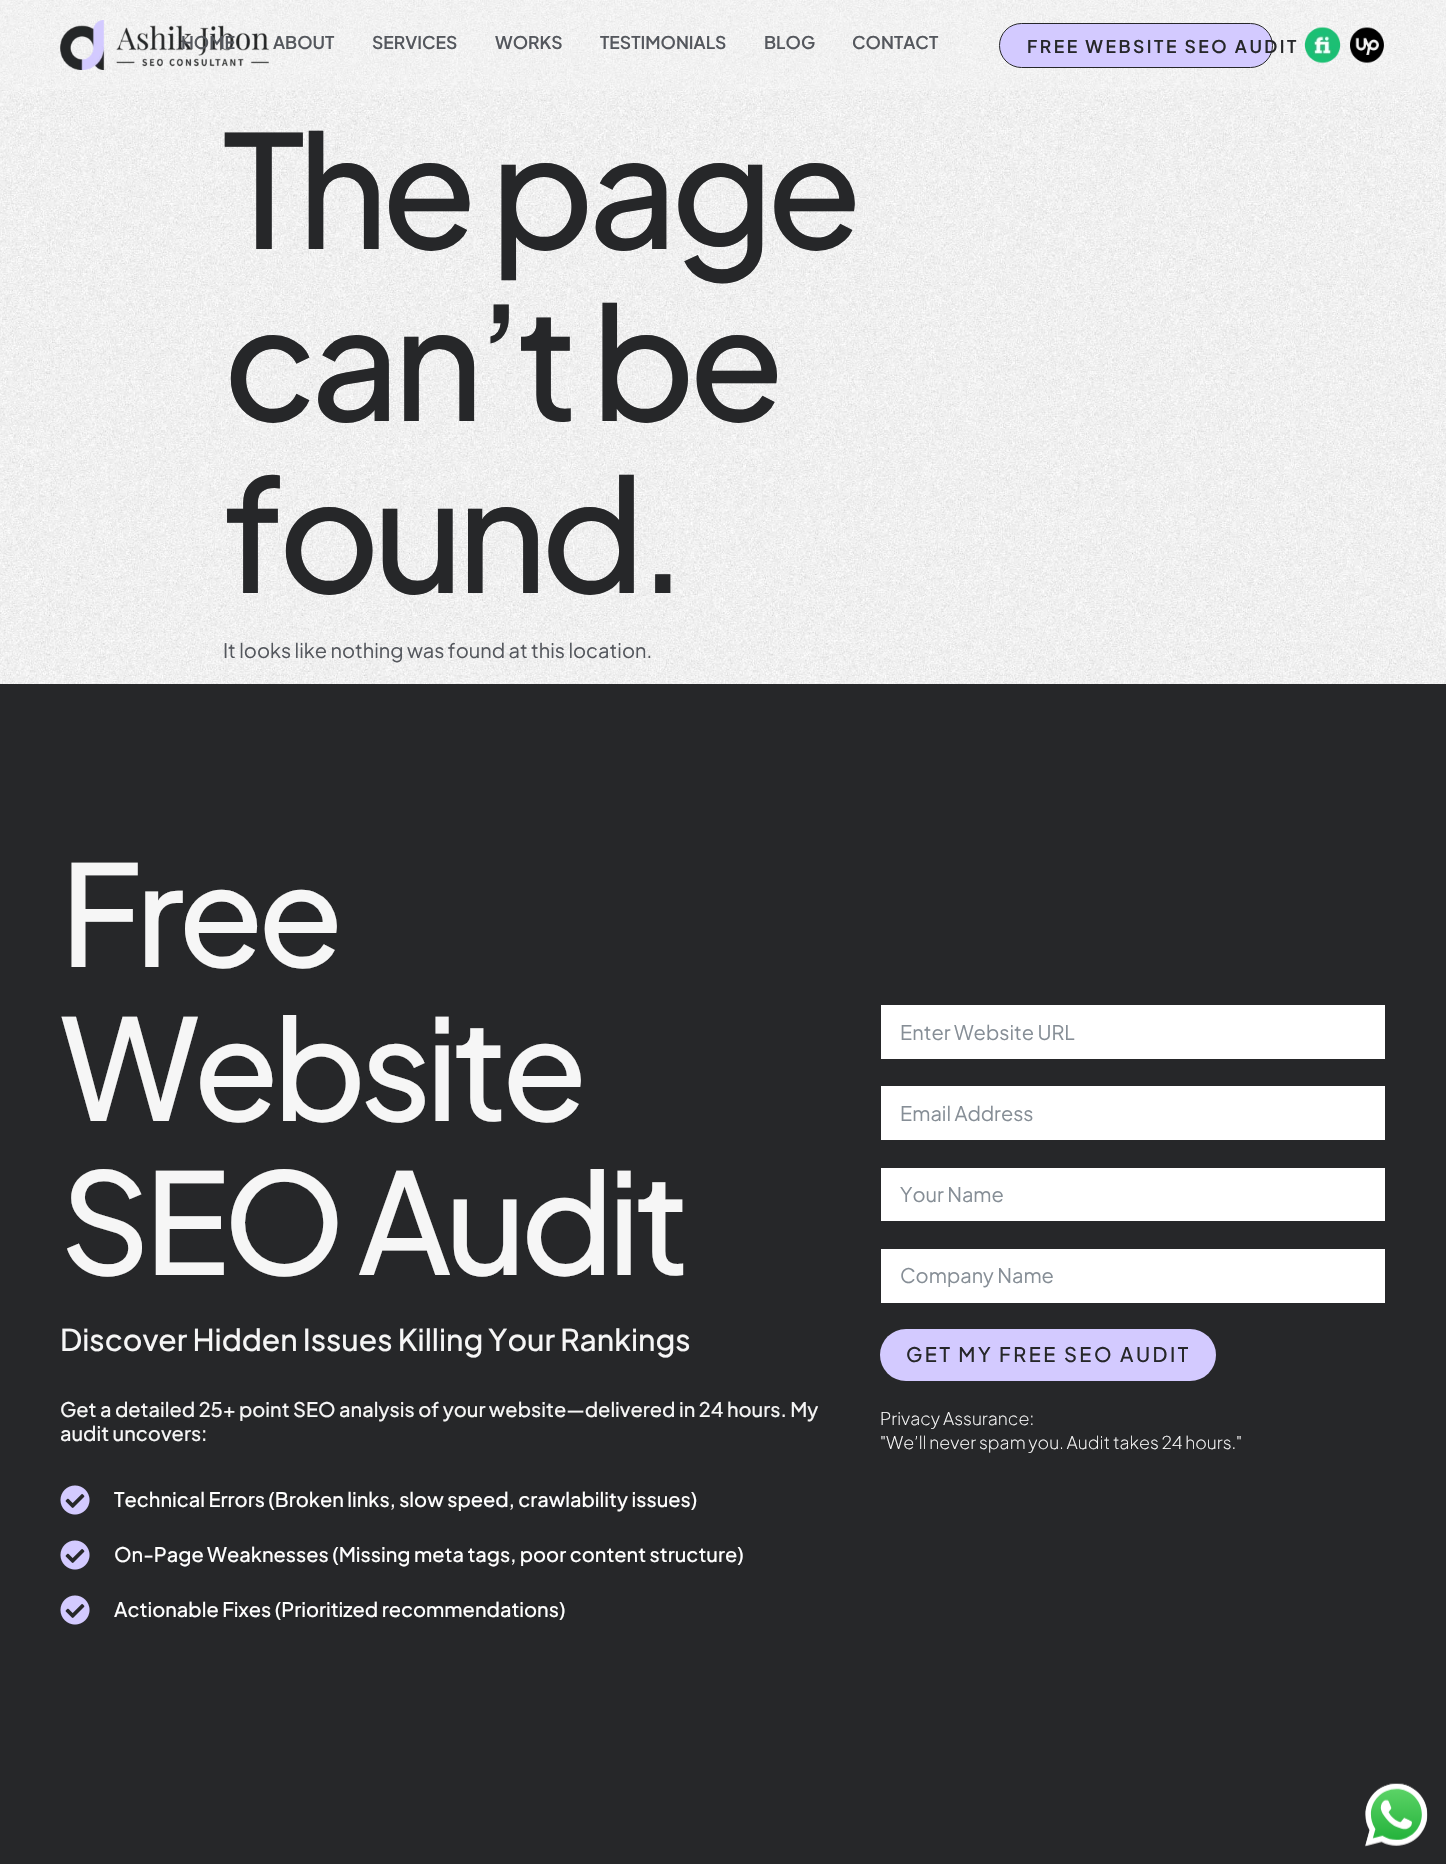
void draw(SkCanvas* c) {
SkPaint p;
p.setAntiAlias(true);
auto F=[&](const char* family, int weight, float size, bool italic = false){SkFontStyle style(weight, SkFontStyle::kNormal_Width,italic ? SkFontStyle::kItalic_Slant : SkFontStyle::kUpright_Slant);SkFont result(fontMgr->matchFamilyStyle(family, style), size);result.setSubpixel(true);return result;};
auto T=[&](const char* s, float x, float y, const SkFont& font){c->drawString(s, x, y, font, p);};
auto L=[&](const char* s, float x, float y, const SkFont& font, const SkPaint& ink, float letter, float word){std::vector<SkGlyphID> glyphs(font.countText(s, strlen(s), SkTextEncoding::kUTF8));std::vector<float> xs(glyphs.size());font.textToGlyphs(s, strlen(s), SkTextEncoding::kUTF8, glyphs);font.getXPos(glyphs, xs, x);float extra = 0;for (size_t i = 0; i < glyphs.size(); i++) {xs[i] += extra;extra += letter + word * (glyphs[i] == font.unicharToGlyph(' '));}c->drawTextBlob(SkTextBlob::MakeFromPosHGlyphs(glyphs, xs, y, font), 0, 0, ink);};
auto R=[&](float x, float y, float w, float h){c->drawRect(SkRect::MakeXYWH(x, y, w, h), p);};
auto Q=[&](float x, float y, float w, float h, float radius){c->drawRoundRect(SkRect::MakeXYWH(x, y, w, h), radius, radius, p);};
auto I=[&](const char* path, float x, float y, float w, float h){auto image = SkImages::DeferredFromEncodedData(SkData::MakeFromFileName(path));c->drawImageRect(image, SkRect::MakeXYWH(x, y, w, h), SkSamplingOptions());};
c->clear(0xffffffff);
I("1.png",0,0,1446,684);
p.setColor(0x4ff6f6f6);
R(0,0,1446,90);
I("2.png",60,20,209,50);
auto f1 = F("Plus Jakarta Sans",600,17.5);
p.setColor(0xff54575d);
T("HOME",181,49,f1);
T("ABOUT",273,49,f1);
T("SERVICES",372,49,f1);
T("WORKS",495,49,f1);
T("TESTIMONIALS",600,49,f1);
T("BLOG",764,49,f1);
T("CONTACT",852,49,f1);
p.setColor(0xffd3caff);
c->drawRoundRect(SkRect::MakeXYWH(999.5,23.5,273,44),22,22,p);
p.setStroke(true);
p.setStrokeWidth(1);
p.setColor(0xff262729);
c->drawRoundRect(SkRect::MakeXYWH(999.5,23.5,273,44),22,22,p);
p.setStroke(false);
L("FREE WEBSITE SEO AUDIT",1027,53,f1,p,2.5,0);
I("3.png",1304,26,37,38);
I("4.png",1350,27,34,36);
auto f2 = F("Plus Jakarta Sans",500,156.25);
L("The page",223,249,f2,p,-7,0);
L("can’t be",223,421,f2,p,-7,0);
L("found.",223,593,f2,p,-7,0);
auto f3 = F("Plus Jakarta Sans",400,20);
p.setColor(0xff54575d);
T("It looks like nothing was found at this location.",223,658,f3);
p.setColor(0xff262729);
R(0,684,1446,1180);
auto f4 = F("Plus Jakarta Sans",500,140);
p.setColor(0xfff6f6f6);
L("Free",60,967,f4,p,-6.25,0);
L("Website",60,1121,f4,p,-6.25,0);
L("SEO Audit",60,1275,f4,p,-6.25,0);
auto f5 = F("Plus Jakarta Sans",500,30);
T("Discover Hidden Issues Killing Your Rankings",60,1351,f5);
auto f6 = F("Plus Jakarta Sans",500,20);
T("Get a detailed 25+ point SEO analysis of your website—delivered in 24 hours. My",60,1417,f6);
T("audit uncovers:",60,1441,f6);
I("5.png",60,1485,30,30);
p.setColor(0xffffffff);
T("Technical Errors (Broken links, slow speed, crawlability issues)",114,1507,f6);
I("5.png",60,1540,30,30);
T("On-Page Weaknesses (Missing meta tags, poor content structure)",114,1562,f6);
I("5.png",60,1595,30,30);
T("Actionable Fixes (Prioritized recommendations)",114,1617,f6);
R(881,1005,504,54);
p.setColor(0xff868e96);
T("Enter Website URL",900,1040,f3);
p.setColor(0xffffffff);
R(881,1086,504,54);
p.setColor(0xff868e96);
T("Email Address",900,1121,f3);
p.setColor(0xffffffff);
R(881,1168,504,53);
p.setColor(0xff868e96);
T("Your Name",900,1202,f3);
p.setColor(0xffffffff);
R(881,1249,504,54);
p.setColor(0xff868e96);
T("Company Name",900,1283,f3);
p.setColor(0xffd3caff);
Q(880,1329,336,52,26);
p.setColor(0xff262729);
L("GET MY FREE SEO AUDIT",906,1362,f6,p,2.5,0);
auto f7 = F("Plus Jakarta Sans",200,17.5);
p.setColor(0xffffffff);
T("Privacy Assurance:",880,1425,f7);
T("\"We’ll never spam you. Audit takes 24 hours.\"",880,1449,f7);
I("6.png",1365,1783,63,64);
}
